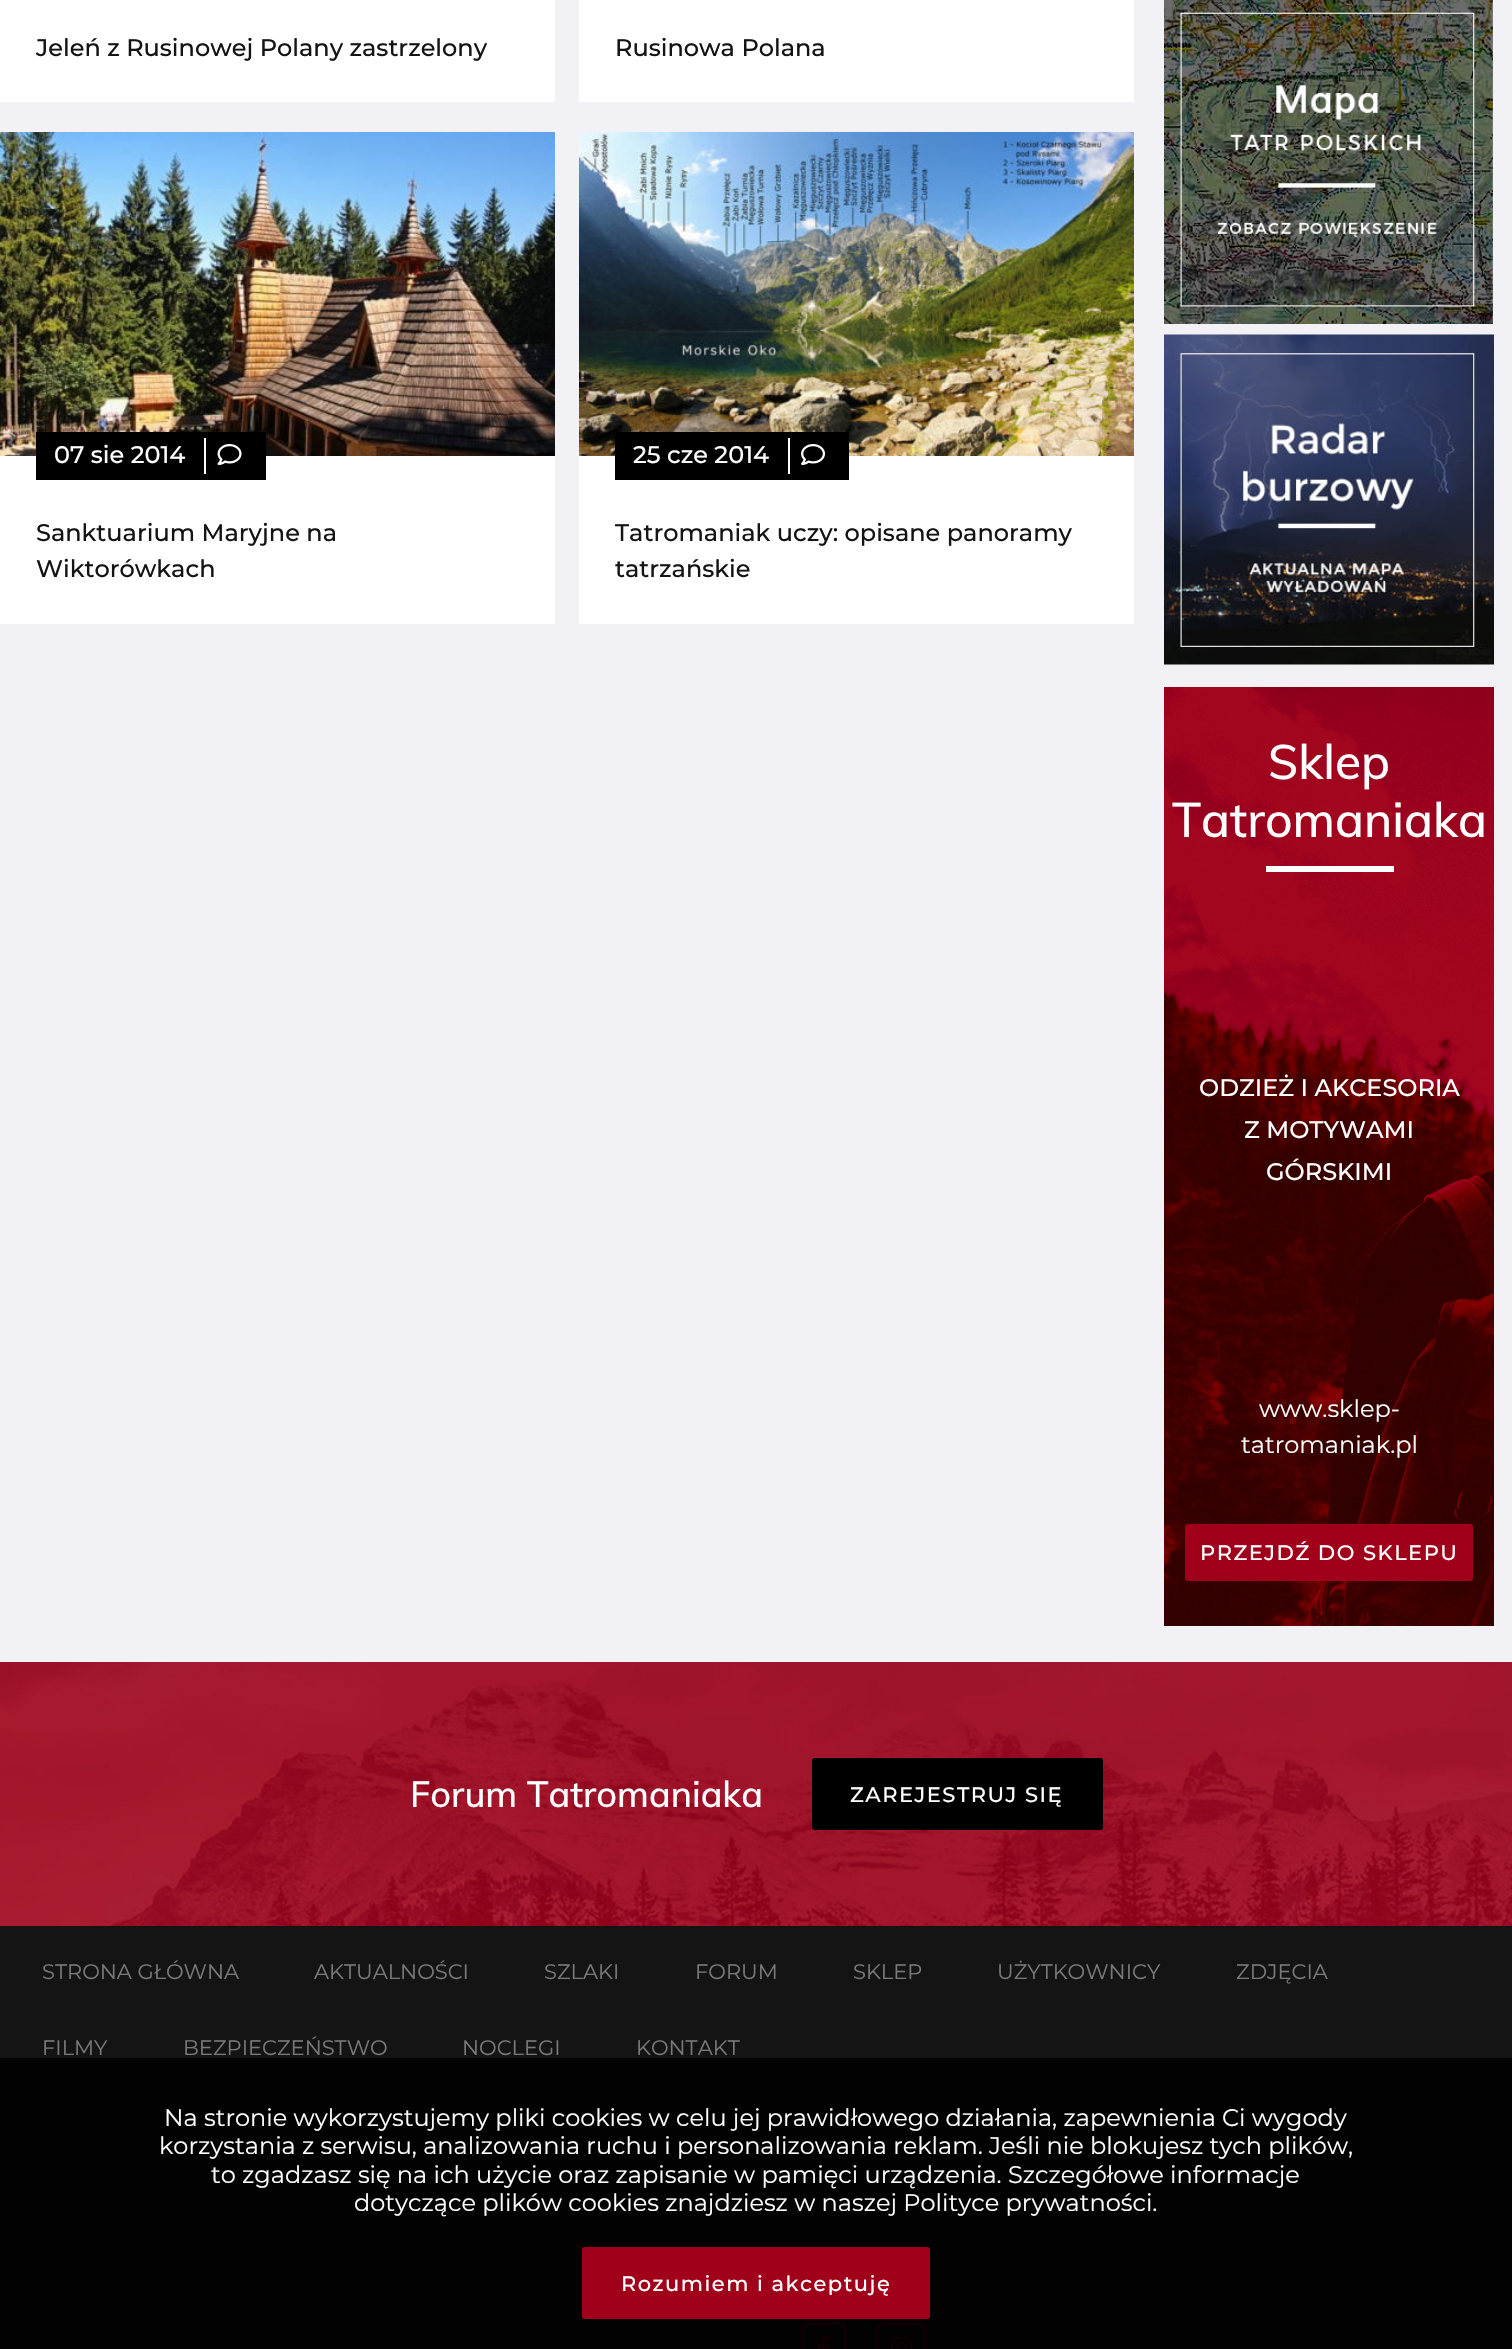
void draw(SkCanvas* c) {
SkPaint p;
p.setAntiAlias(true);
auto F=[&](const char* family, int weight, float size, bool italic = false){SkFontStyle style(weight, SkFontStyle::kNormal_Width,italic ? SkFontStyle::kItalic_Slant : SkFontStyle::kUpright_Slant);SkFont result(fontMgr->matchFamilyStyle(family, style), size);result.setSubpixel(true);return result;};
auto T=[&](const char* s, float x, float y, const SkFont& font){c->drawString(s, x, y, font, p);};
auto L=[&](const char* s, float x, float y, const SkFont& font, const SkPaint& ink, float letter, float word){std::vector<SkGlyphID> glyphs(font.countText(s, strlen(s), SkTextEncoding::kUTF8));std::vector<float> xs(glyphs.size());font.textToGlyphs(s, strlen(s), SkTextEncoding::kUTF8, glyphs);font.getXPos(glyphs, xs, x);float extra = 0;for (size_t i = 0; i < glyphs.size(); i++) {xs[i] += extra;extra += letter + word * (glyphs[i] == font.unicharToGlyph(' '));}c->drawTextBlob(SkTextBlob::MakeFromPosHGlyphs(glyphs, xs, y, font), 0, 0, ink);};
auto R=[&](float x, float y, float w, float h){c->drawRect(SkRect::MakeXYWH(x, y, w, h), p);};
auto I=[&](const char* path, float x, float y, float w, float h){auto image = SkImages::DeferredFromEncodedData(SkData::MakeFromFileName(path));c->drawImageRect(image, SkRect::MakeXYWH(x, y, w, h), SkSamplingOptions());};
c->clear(0xfff2f1f5);
p.setColor(0xffffffff);
R(0,0,555,102);
auto f1 = F("Montserrat",500,24);
p.setColor(0xff141414);
T("Jeleń z Rusinowej Polany zastrzelony",36,56,f1);
p.setColor(0xffffffff);
R(579,0,555,102);
p.setColor(0xff141414);
T("Rusinowa Polana",615,56,f1);
I("1.png",0,132,555,324);
p.setColor(0xffffffff);
R(0,456,555,168);
p.setColor(0xff000000);
R(36,432,230,48);
p.setColor(0xffffffff);
T("07 sie 2014",54,463,f1);
R(204,438,2,36);
I("2.png",217,444,25,21);
p.setColor(0xff141414);
T("Sanktuarium Maryjne na",36,541,f1);
T("Wiktorówkach",36,577,f1);
I("3.png",579,132,555,324);
p.setColor(0xffffffff);
R(579,456,555,168);
p.setColor(0xff000000);
R(615,432,234,48);
p.setColor(0xffffffff);
T("25 cze 2014",633,463,f1);
R(788,438,2,36);
I("4.png",801,444,24,21);
p.setColor(0xff141414);
T("Tatromaniak uczy: opisane panoramy",615,541,f1);
T("tatrzańskie",615,577,f1);
I("5.png",1164,0,329,324);
I("6.png",1164,334,330,331);
I("7.png",1164,687,330,939);
auto f2 = F("Muli",500,48);
p.setColor(0xffffffff);
T("Sklep",1268,779,f2);
T("Tatromaniaka",1172,837,f2);
R(1266,866,128,6);
T("ODZIEŻ I AKCESORIA",1199,1096,f1);
T("Z MOTYWAMI",1244,1138,f1);
T("GÓRSKIMI",1266,1180,f1);
auto f3 = F("Montserrat",400,24);
T("www.sklep-",1259,1417,f3);
T("tatromaniak.pl",1241,1453,f3);
p.setColor(0xffa00019);
c->drawRoundRect(SkRect::MakeXYWH(1186.5,1525.5,285,54),1.5,1.5,p);
p.setStroke(true);
p.setStrokeWidth(3);
c->drawRoundRect(SkRect::MakeXYWH(1186.5,1525.5,285,54),1.5,1.5,p);
auto f4 = F("Montserrat",500,21);
p.setStroke(false);
p.setColor(0xffffffff);
L("PRZEJDŹ DO SKLEPU",1200,1560,f4,p,1.5,0);
I("8.png",0,1662,1512,264);
auto f5 = F("Muli",500,36);
T("Forum Tatromaniaka",410,1807,f5);
p.setColor(0xff000000);
c->drawRoundRect(SkRect::MakeXYWH(813.5,1759.5,288,69),1.5,1.5,p);
p.setStroke(true);
c->drawRoundRect(SkRect::MakeXYWH(813.5,1759.5,288,69),1.5,1.5,p);
p.setStroke(false);
p.setColor(0xffffffff);
L("ZAREJESTRUJ SIĘ",850,1802,f4,p,1.5,0);
p.setColor(0xff141414);
R(0,1926,1512,132);
p.setColor(0xff020202);
R(0,2058,1512,291);
auto f6 = F("Montserrat",400,21);
p.setColor(0xff7a7a7a);
T("STRONA GŁÓWNA",42,1979,f6);
T("AKTUALNOŚCI",314,1979,f6);
T("SZLAKI",544,1979,f6);
T("FORUM",695,1979,f6);
T("SKLEP",853,1979,f6);
T("UŻYTKOWNICY",997,1979,f6);
T("ZDJĘCIA",1236,1979,f6);
T("FILMY",42,2055,f6);
T("BEZPIECZEŃSTWO",183,2055,f6);
T("NOCLEGI",462,2055,f6);
T("KONTAKT",636,2055,f6);
p.setColor(0xffffffff);
T("Na stronie wykorzystujemy pliki cookies w celu jej prawidłowego działania, zapewnienia Ci wygody",164,2126,f3);
T("korzystania z serwisu, analizowania ruchu i personalizowania reklam. Jeśli nie blokujesz tych plików,",159,2154,f3);
T("to zgadzasz się na ich użycie oraz zapisanie w pamięci urządzenia. Szczegółowe informacje",211,2183,f3);
T("dotyczące plików cookies znajdziesz w naszej Polityce prywatności.",354,2211,f3);
p.setColor(0xffa00019);
c->drawRoundRect(SkRect::MakeXYWH(583.5,2248.5,345,69),1.5,1.5,p);
p.setStroke(true);
c->drawRoundRect(SkRect::MakeXYWH(583.5,2248.5,345,69),1.5,1.5,p);
p.setStroke(false);
p.setColor(0xffffffff);
L("Rozumiem i akceptuję",621,2291,f4,p,1.5,0);
p.setStroke(true);
p.setColor(0xff100002);
c->drawRoundRect(SkRect::MakeXYWH(802.5,2323.5,42,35),6.5,6.5,p);
I("9.png",817,2335,13,14);
c->drawRoundRect(SkRect::MakeXYWH(877.5,2323.5,48,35),6.5,6.5,p);
I("10.png",891,2337,22,12);
}
